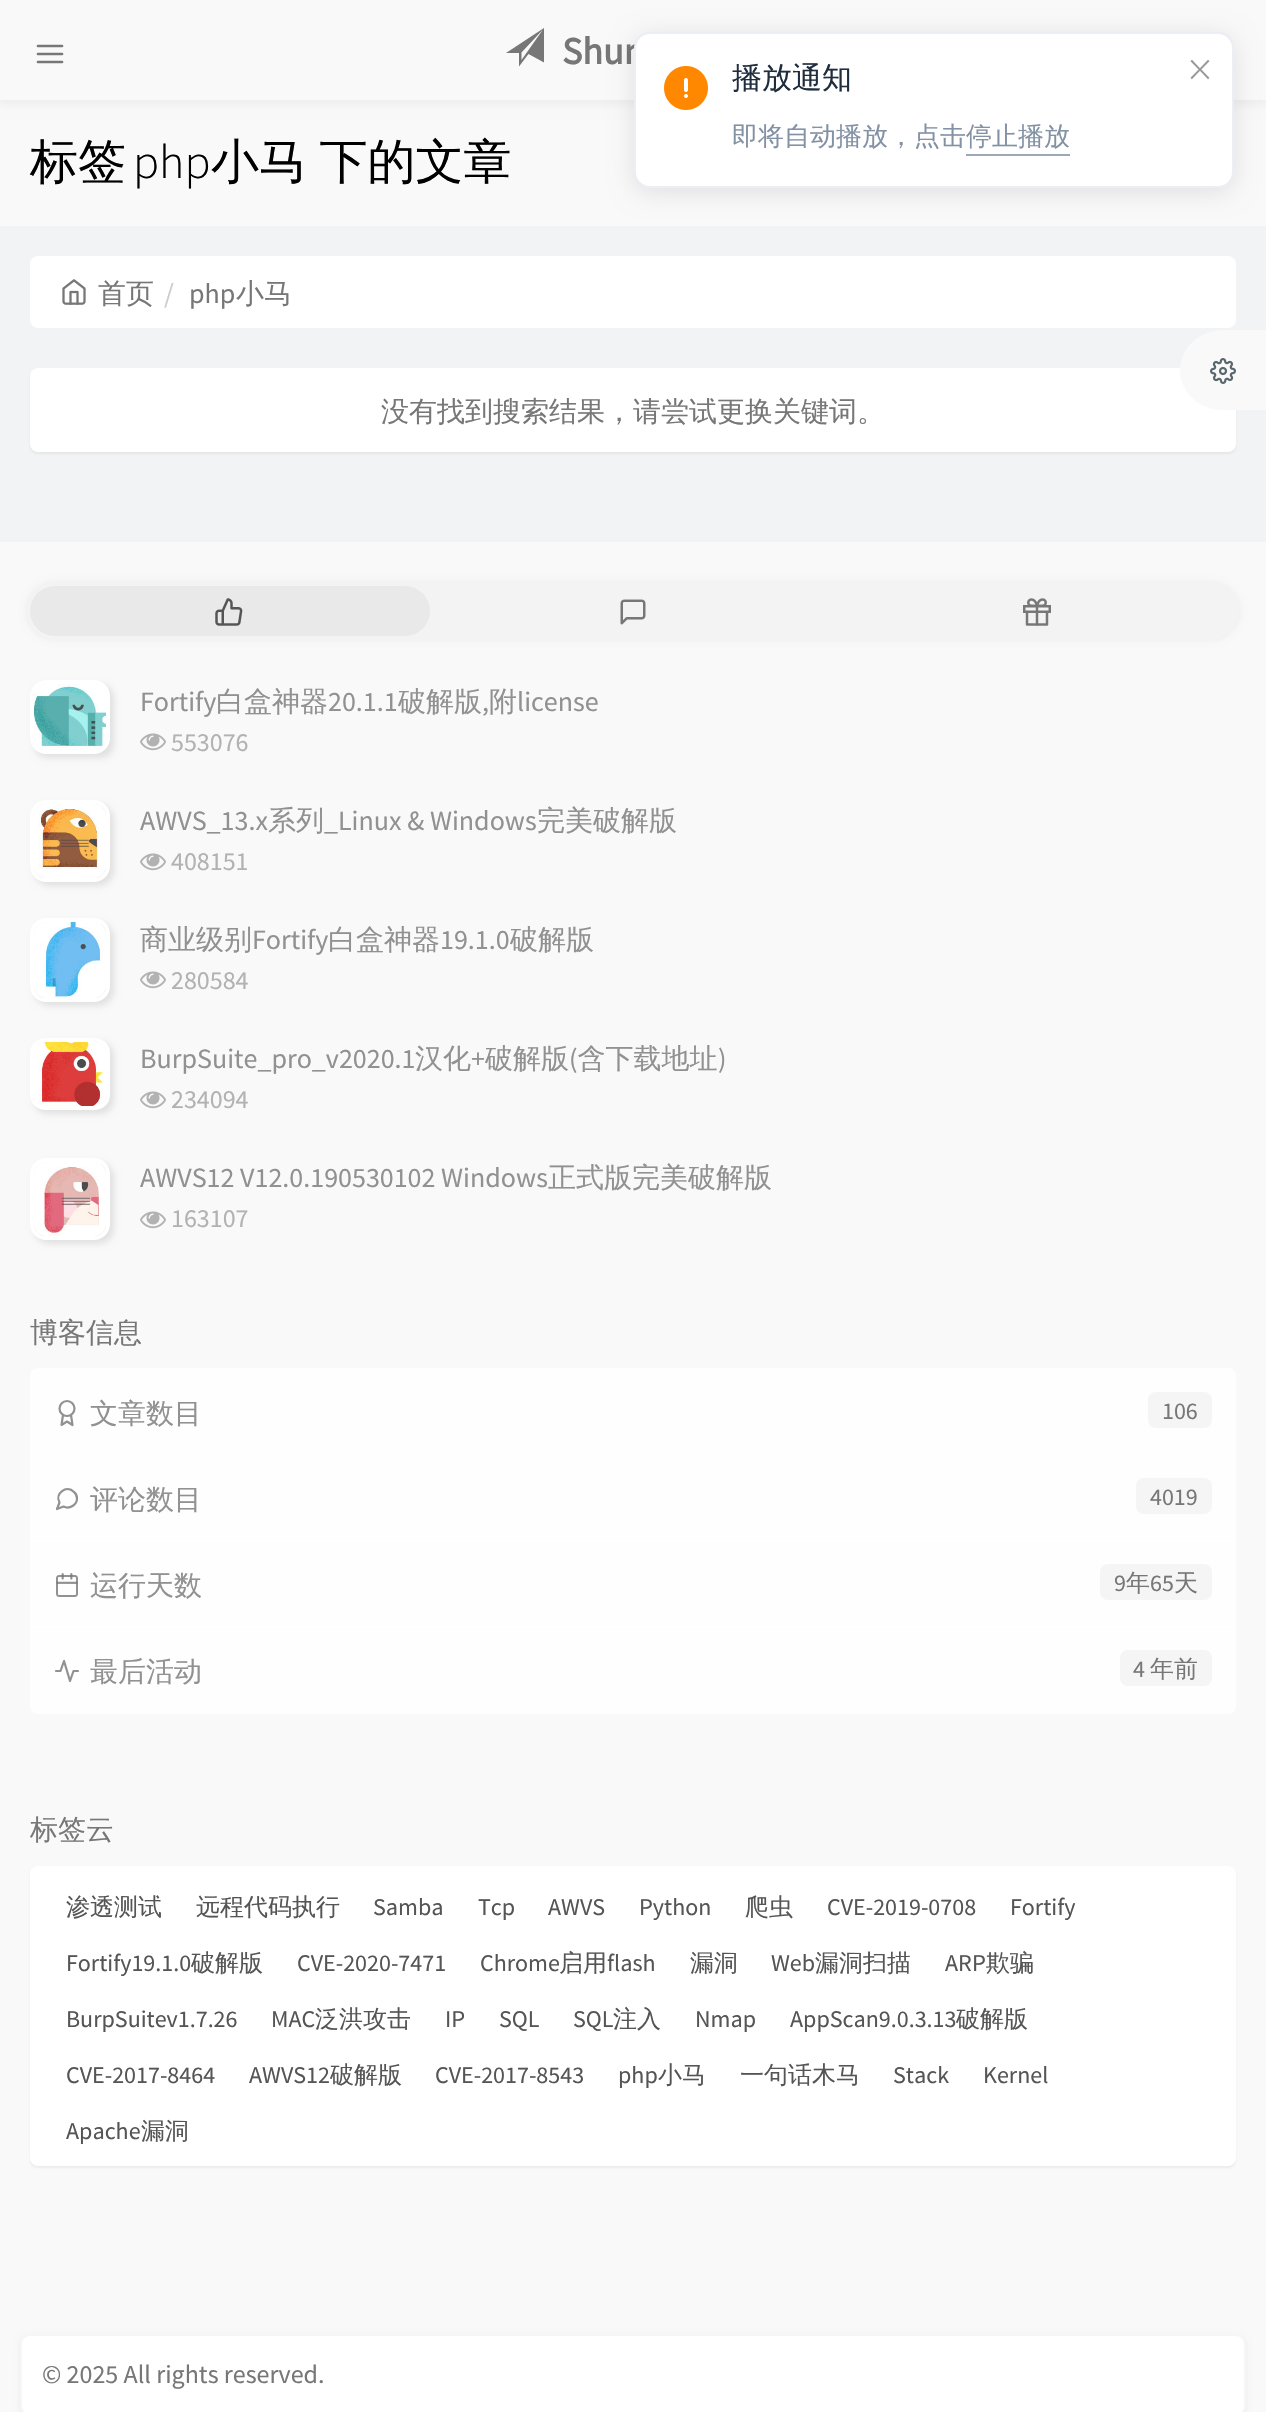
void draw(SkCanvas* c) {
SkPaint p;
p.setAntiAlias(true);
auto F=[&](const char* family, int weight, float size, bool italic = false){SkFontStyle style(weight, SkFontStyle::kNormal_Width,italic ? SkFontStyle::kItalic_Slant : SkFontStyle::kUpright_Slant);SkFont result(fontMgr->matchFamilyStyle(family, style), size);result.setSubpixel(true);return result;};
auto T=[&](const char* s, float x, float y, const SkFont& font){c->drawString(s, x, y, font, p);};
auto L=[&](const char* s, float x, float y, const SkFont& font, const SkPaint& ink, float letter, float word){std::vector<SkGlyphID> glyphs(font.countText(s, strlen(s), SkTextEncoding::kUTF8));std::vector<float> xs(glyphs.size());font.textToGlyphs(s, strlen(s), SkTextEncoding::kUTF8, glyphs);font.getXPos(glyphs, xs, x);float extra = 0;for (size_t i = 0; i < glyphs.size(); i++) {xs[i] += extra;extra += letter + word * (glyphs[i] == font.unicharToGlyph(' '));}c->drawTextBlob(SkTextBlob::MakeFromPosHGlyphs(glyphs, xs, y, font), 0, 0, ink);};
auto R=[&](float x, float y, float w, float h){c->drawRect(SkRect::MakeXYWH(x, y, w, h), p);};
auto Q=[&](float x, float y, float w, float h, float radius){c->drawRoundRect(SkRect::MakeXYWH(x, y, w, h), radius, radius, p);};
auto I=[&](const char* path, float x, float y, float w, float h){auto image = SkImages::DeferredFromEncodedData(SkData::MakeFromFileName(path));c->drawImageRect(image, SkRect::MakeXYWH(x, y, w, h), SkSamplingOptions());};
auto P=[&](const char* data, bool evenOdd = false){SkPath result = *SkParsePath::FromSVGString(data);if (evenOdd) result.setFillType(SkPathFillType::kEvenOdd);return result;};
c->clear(0xfff9f9f9);
p.setColor(0x0d000000);
p.setMaskFilter(SkMaskFilter::MakeBlur(kNormal_SkBlurStyle, 5));
c->drawRect(SkRect::MakeXYWH(-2,0,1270,104),p);
p.setMaskFilter(nullptr);
p.setColor(0xfff9f9f9);
R(0,0,1266,100);
p.setStroke(true);
p.setStrokeWidth(2.7);
p.setStrokeCap(SkPaint::kRound_Cap);
p.setStrokeJoin(SkPaint::kRound_Join);
p.setColor(0xff777777);
c->drawPath(P("M38 54h24m-24-8h24m-24 16h24"),p);
p.setStroke(false);
c->drawPath(P("M544 62.5l-15.5-8.5l-9.5 12.5v-13.5h-13l38-25zm-22.5-10v7.5l21.5-30.5z"),p);
auto f1 = F("Source Sans Pro",700,38);
T("Shun",562,64,f1);
p.setColor(0xfff1f3f4);
R(0,226,1266,316);
auto f2 = F("WenQuanYi Zen Hei",500,48);
p.setColor(0xff000000);
T("标签",30,178,f2);
auto f3 = F("Source Sans Pro",300,48);
T("php",133,178,f3);
L("小马 下的文章",211,178,f2,p,0,-2);
p.setColor(0xffffffff);
Q(30,256,1206,72,8);
I("1.png",62,279,24,26);
auto f4 = F("WenQuanYi Zen Hei",500,28);
p.setColor(0xff777777);
T("首页",98,303,f4);
auto f5 = F("Source Sans Pro",400,28);
p.setColor(0xffcccccc);
T("/",164,303,f5);
p.setColor(0xff777777);
T("php",189,303,f5);
T("小马",236,303,f4);
p.setColor(0x0d000000);
p.setMaskFilter(SkMaskFilter::MakeBlur(kNormal_SkBlurStyle, 1));
c->drawRoundRect(SkRect::MakeXYWH(30,370,1206,84),8,8,p);
p.setMaskFilter(nullptr);
p.setColor(0xffffffff);
Q(30,368,1206,84,8);
p.setColor(0xff777777);
T("没有找到搜索结果，请尝试更换关键词。",381,421,f4);
p.setColor(0xfffefefe);
R(30,1542,1206,86);
R(30,1456,1206,84);
p.setColor(0xffffffff);
R(30,1540,1206,2);
p.setColor(0x0d000000);
p.setMaskFilter(SkMaskFilter::MakeBlur(kNormal_SkBlurStyle, 3));
c->drawRoundRect(SkRect::MakeXYWH(26,582,1214,58),29,29,p);
p.setMaskFilter(nullptr);
p.setColor(0xfff3f3f3);
Q(26,582,1214,58,29);
p.setColor(0xffe9e9e9);
Q(30,586,400,50,25);
I("2.png",215,598,28,28);
I("3.png",620,599,26,26);
I("4.png",1023,598,28,28);
p.setColor(0xffe1e1e1);
p.setMaskFilter(SkMaskFilter::MakeBlur(kNormal_SkBlurStyle, 3));
c->drawRoundRect(SkRect::MakeXYWH(34,684,80,74),14,14,p);
p.setMaskFilter(nullptr);
p.setStroke(true);
p.setStrokeWidth(4);
p.setStrokeCap(SkPaint::kButt_Cap);
p.setStrokeJoin(SkPaint::kMiter_Join);
p.setColor(0xffffffff);
c->drawRoundRect(SkRect::MakeXYWH(32,682,76,70),14,14,p);
I("5.png",34,684,72,66);
p.setStroke(false);
p.setColor(0xff919191);
T("Fortify",140,711,f5);
T("白盒神器",216,711,f4);
T("20.1.1",328,711,f5);
T("破解版",398,711,f4);
T(",",482,711,f5);
T("附",489,711,f4);
T("license",517,711,f5);
I("6.png",140,733,26,18);
auto f6 = F("Source Sans Pro",400,26);
p.setColor(0xffb2b2b2);
T("553076",171,751,f6);
p.setColor(0xffe1e1e1);
p.setMaskFilter(SkMaskFilter::MakeBlur(kNormal_SkBlurStyle, 3));
c->drawRoundRect(SkRect::MakeXYWH(34,804,80,82),16,16,p);
p.setMaskFilter(nullptr);
p.setStroke(true);
p.setColor(0xffffffff);
c->drawRoundRect(SkRect::MakeXYWH(32,802,76,78),14,14,p);
I("7.png",34,804,72,74);
p.setStroke(false);
p.setColor(0xff919191);
T("AWVS_13.x",140,830,f5);
T("系列",268,830,f4);
T("_Linux & Windows",324,830,f5);
T("完美破解版",537,830,f4);
I("6.png",140,853,26,18);
p.setColor(0xffb2b2b2);
T("408151",171,870,f6);
p.setColor(0xffe1e1e1);
p.setMaskFilter(SkMaskFilter::MakeBlur(kNormal_SkBlurStyle, 3));
c->drawRoundRect(SkRect::MakeXYWH(34,922,80,84),16,16,p);
p.setMaskFilter(nullptr);
p.setStroke(true);
p.setColor(0xffffffff);
c->drawRoundRect(SkRect::MakeXYWH(32,920,76,80),14,14,p);
I("8.png",34,922,72,76);
p.setStroke(false);
p.setColor(0xff919191);
T("商业级别",140,949,f4);
T("Fortify",252,949,f5);
T("白盒神器",328,949,f4);
T("19.1.0",440,949,f5);
T("破解版",510,949,f4);
I("6.png",140,971,26,18);
p.setColor(0xffb2b2b2);
T("280584",171,989,f6);
p.setColor(0xffe1e1e1);
p.setMaskFilter(SkMaskFilter::MakeBlur(kNormal_SkBlurStyle, 3));
c->drawRoundRect(SkRect::MakeXYWH(34,1042,80,72),14,14,p);
p.setMaskFilter(nullptr);
p.setStroke(true);
p.setColor(0xffffffff);
c->drawPath(P("M46 1040h48c7.5 0 14 5.5 14 12.5v43c0 7-6.5 12.5-14 12.5h-48c-7.5 0-14-5.5-14-12.5v-43c0-7 6.5-12.5 14-12.5z"),p);
I("9.png",34,1042,72,64);
p.setStroke(false);
p.setColor(0xff919191);
T("汉化",415,1068,f4);
T("破解版 含下载地址",485,1068,f4);
T("BurpSuite_pro_v2020.1",140,1068,f5);
T("+",471,1068,f5);
T("(",569,1068,f5);
T(")",718,1068,f5);
I("6.png",140,1091,26,18);
p.setColor(0xffb2b2b2);
T("234094",171,1108,f6);
p.setColor(0xffe1e1e1);
p.setMaskFilter(SkMaskFilter::MakeBlur(kNormal_SkBlurStyle, 3));
c->drawRoundRect(SkRect::MakeXYWH(34,1162,80,82),16,16,p);
p.setMaskFilter(nullptr);
p.setStroke(true);
p.setColor(0xffffffff);
c->drawRoundRect(SkRect::MakeXYWH(32,1160,76,78),14,14,p);
I("10.png",34,1162,72,74);
p.setStroke(false);
p.setColor(0xff919191);
T("AWVS12 V12.0.190530102 Windows",140,1187,f5);
T("正式版完美破解版",548,1187,f4);
I("6.png",140,1211,26,18);
p.setColor(0xffb2b2b2);
T("163107",171,1227,f6);
p.setColor(0xff777777);
T("博客信息",30,1342,f4);
p.setColor(0xfffefefe);
c->drawPath(P("M38 1368h1190c4.5 0 8 3.5 8 8v80h-1206v-80c0-4.5 3.5-8 8-8z"),p);
p.setStroke(true);
p.setStrokeWidth(2.2);
p.setColor(0xff919191);
c->drawCircle(67,1408.5,7.5,p);
p.setStrokeCap(SkPaint::kRound_Cap);
p.setStrokeJoin(SkPaint::kRound_Join);
c->drawPath(P("M63 1415l-1.5 10l5.5-3.5l5.5 3.5l-1.5-10"),p);
p.setStroke(false);
T("文章数目",90,1423,f4);
p.setColor(0xfff5f5f5);
Q(1148,1392,64,36,8);
auto f7 = F("Source Sans Pro",400,24);
p.setColor(0xff777777);
T("106",1162,1419,f7);
p.setStroke(true);
p.setColor(0xff919191);
c->drawPath(P("M77 1498.5c0 6.5-7.5 11-13.5 8l-6.5 2.5l2.5-6.5c-5-9 7-18 14.5-10.5c2 1.5 3 4 3 6.5z"),p);
p.setStroke(false);
T("评论数目",90,1509,f4);
p.setColor(0xfff5f5f5);
Q(1136,1478,76,36,8);
p.setColor(0xff777777);
T("4019",1150,1505,f7);
I("11.png",56,1573,22,24);
p.setColor(0xff919191);
T("运行天数",90,1595,f4);
p.setColor(0xfff5f5f5);
Q(1100,1564,112,36,8);
p.setColor(0xff777777);
T("9",1114,1591,f7);
auto f8 = F("WenQuanYi Zen Hei",500,24);
T("年",1126,1591,f8);
T("65",1150,1591,f7);
T("天",1174,1591,f8);
p.setColor(0xccffffff);
c->drawPath(P("M30 1626h1206v80c0 4.5-3.5 8-8 8h-1190c-4.5 0-8-3.5-8-8z"),p);
p.setStroke(true);
p.setColor(0xff919191);
c->drawPath(P("M78 1671h-4.5l-3.5 10l-6-20l-3.5 10h-4.5"),p);
p.setStroke(false);
T("最后活动",90,1681,f4);
p.setColor(0xfff5f5f5);
Q(1120,1650,92,36,8);
p.setColor(0xff777777);
T("4",1133,1677,f7);
T("年前",1150,1677,f8);
T("标签云",30,1839,f4);
p.setColor(0x0d000000);
p.setMaskFilter(SkMaskFilter::MakeBlur(kNormal_SkBlurStyle, 1));
c->drawRoundRect(SkRect::MakeXYWH(30,1868,1206,300),8,8,p);
p.setMaskFilter(nullptr);
p.setColor(0xffffffff);
Q(30,1866,1206,300,8);
p.setColor(0xff555555);
T("渗透测试",66,1915,f8);
T("远程代码执行",196,1915,f8);
T("Samba",373,1915,f7);
T("Tcp",478,1915,f7);
T("AWVS",548,1915,f7);
T("Python",639,1915,f7);
T("爬虫",745,1915,f8);
T("CVE-2019-0708",827,1915,f7);
T("Fortify",1010,1915,f7);
T("Fortify19.1.0",66,1971,f7);
T("破解版",191,1971,f8);
T("CVE-2020-7471",297,1971,f7);
T("Chrome",480,1971,f7);
T("启用",559,1971,f8);
T("flash",607,1971,f7);
T("漏洞",690,1971,f8);
T("Web",771,1971,f7);
T("漏洞扫描",815,1971,f8);
T("ARP",945,1971,f7);
T("欺骗",986,1971,f8);
T("BurpSuitev1.7.26",66,2027,f7);
T("MAC",271,2027,f7);
T("泛洪攻击",315,2027,f8);
T("IP",445,2027,f7);
T("SQL",499,2027,f7);
T("SQL",573,2027,f7);
T("注入",613,2027,f8);
T("Nmap",695,2027,f7);
T("AppScan9.0.3.13",790,2027,f7);
T("破解版",956,2027,f8);
T("CVE-2017-8464",66,2083,f7);
T("AWVS12",249,2083,f7);
T("破解版",330,2083,f8);
T("CVE-2017-8543",435,2083,f7);
T("php",618,2083,f7);
T("小马",658,2083,f8);
T("一句话木马",740,2083,f8);
T("Stack",893,2083,f7);
T("Kernel",983,2083,f7);
T("Apache",66,2139,f7);
T("漏洞",141,2139,f8);
p.setColor(0x0d000000);
p.setMaskFilter(SkMaskFilter::MakeBlur(kNormal_SkBlurStyle, 3));
c->drawRoundRect(SkRect::MakeXYWH(20,2336,1226,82),10,10,p);
p.setMaskFilter(nullptr);
p.setColor(0xffffffff);
c->drawRoundRect(SkRect::MakeXYWH(21,2335,1224,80),9,9,p);
p.setStroke(true);
p.setStrokeWidth(2);
p.setStrokeCap(SkPaint::kButt_Cap);
p.setStrokeJoin(SkPaint::kMiter_Join);
p.setColor(0xfff6f6f6);
c->drawRoundRect(SkRect::MakeXYWH(21,2335,1224,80),9,9,p);
p.setStroke(false);
p.setColor(0xff777777);
T("© 2025 All rights reserved.",42,2383,f6);
p.setColor(0x1a000000);
p.setMaskFilter(SkMaskFilter::MakeBlur(kNormal_SkBlurStyle, 12));
c->drawRoundRect(SkRect::MakeXYWH(634,36,600,156),16,16,p);
p.setMaskFilter(nullptr);
p.setColor(0xffffffff);
c->drawRoundRect(SkRect::MakeXYWH(635,33,598,154),15,15,p);
p.setStroke(true);
p.setColor(0xffebeef5);
c->drawRoundRect(SkRect::MakeXYWH(635,33,598,154),15,15,p);
I("12.png",664,66,44,44);
auto f9 = F("WenQuanYi Zen Hei",500,30);
p.setStroke(false);
p.setColor(0xff1f2d3d);
T("播放通知",732,88,f9);
auto f10 = F("Source Sans Pro",300,50);
p.setColor(0xff999999);
T("×",1188,86,f10);
auto f11 = F("WenQuanYi Zen Hei",500,26);
p.setColor(0xff8391a5);
T("即将自动播放，点击停止播放",732,145,f11);
p.setColor(0xff9ca7b7);
R(966,154,104,2);
p.setColor(0xfff9f9f9);
c->drawPath(P("M1223 330h43v80h-43c-24 0-43-18-43-40c0-22 19-40 43-40z"),p);
I("13.png",1210,358,26,26);
}
